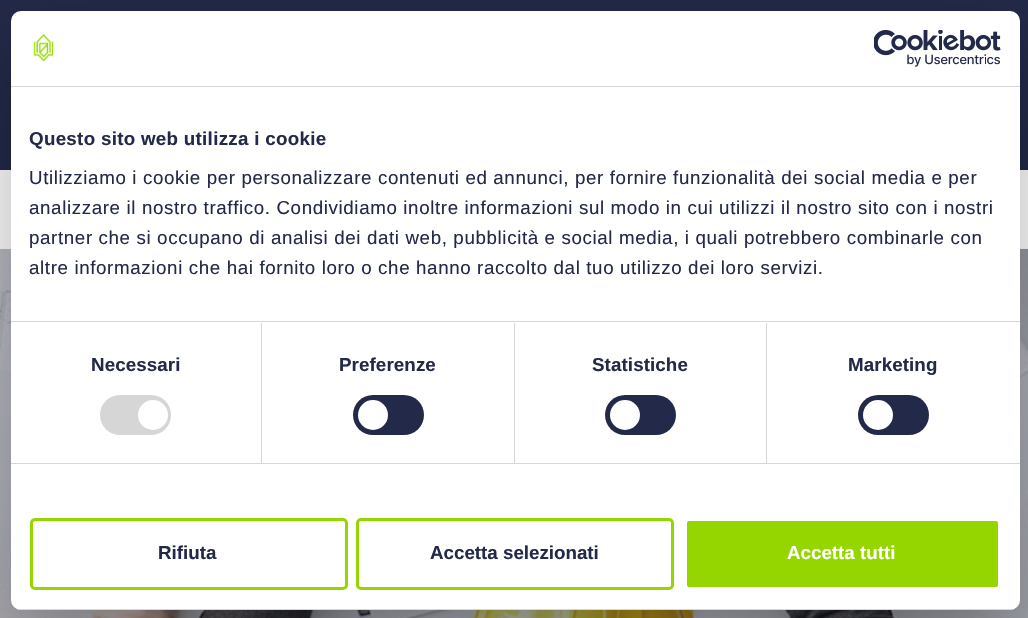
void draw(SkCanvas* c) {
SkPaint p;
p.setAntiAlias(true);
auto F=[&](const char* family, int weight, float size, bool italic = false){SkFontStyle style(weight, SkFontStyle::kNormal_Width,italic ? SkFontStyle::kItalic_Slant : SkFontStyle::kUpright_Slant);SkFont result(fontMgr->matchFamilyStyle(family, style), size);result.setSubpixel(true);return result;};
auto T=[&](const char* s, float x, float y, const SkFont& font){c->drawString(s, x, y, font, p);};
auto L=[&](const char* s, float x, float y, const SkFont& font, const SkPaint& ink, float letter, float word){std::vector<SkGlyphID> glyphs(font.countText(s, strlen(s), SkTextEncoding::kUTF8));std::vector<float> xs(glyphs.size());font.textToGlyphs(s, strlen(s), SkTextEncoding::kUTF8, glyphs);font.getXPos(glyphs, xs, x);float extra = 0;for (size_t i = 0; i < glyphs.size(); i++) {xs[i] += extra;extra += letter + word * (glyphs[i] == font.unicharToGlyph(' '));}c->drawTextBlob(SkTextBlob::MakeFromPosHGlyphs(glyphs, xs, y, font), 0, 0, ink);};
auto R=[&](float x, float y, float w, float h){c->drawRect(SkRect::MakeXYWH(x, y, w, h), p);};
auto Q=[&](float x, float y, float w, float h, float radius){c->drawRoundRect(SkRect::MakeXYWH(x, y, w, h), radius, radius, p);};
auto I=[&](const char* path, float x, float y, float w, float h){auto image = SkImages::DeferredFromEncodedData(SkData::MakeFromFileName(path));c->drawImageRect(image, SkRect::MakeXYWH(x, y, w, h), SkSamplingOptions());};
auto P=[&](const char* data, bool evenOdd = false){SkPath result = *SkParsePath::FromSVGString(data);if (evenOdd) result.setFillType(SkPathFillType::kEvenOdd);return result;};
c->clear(0xffffffff);
p.setColor(0xff232948);
R(0,0,1028,170);
I("3.png",0,248,1028,370);
p.setColor(0x99ffffff);
R(98,248,930,1);
p.setColor(0x4d000000);
p.setMaskFilter(SkMaskFilter::MakeBlur(kNormal_SkBlurStyle, 42.5));
c->drawRoundRect(SkRect::MakeXYWH(11,51,1009,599),10,10,p);
p.setMaskFilter(nullptr);
p.setColor(0xffffffff);
Q(11,11,1009,599,10);
p.setColor(0xffd6d6d6);
R(11,86,1009,1);
I("1.png",33,34,21,28);
I("2.png",874,30,127,37);
R(11,321,1009,1);
auto f1 = F("Liberation Sans",700,18.75);
p.setColor(0xff232948);
L("Questo sito web utilizza i cookie",29,145,f1,p,.3,0);
auto f2 = F("Liberation Sans",400,18.75);
L("Utilizziamo i cookie per personalizzare contenuti ed annunci, per fornire funzionalità dei social media e per",29,184,f2,p,.62,0);
L("analizzare il nostro traffico. Condividiamo inoltre informazioni sul modo in cui utilizzi il nostro sito con i nostri",29,214,f2,p,.62,0);
L("partner che si occupano di analisi dei dati web, pubblicità e social media, i quali potrebbero combinarle con",29,244,f2,p,.62,0);
L("altre informazioni che hai fornito loro o che hanno raccolto dal tuo utilizzo dei loro servizi.",29,274,f2,p,.62,0);
p.setColor(0xffd6d6d6);
R(11,463,1009,1);
R(261,323,1,140);
p.setColor(0xff232948);
L("Necessari",91,371,f1,p,.1,0);
p.setColor(0xffd6d6d6);
Q(100,395,71,40,20);
p.setColor(0xffffffff);
c->drawCircle(153,415,15,p);
p.setColor(0xffd6d6d6);
R(514,323,1,140);
p.setColor(0xff232948);
L("Preferenze",339,371,f1,p,.1,0);
Q(353,395,71,40,20);
p.setColor(0xffffffff);
c->drawCircle(373,415,15,p);
p.setColor(0xffd6d6d6);
R(766,323,1,140);
p.setColor(0xff232948);
L("Statistiche",592,371,f1,p,.1,0);
Q(605,395,71,40,20);
p.setColor(0xffffffff);
c->drawCircle(625,415,15,p);
p.setColor(0xff232948);
L("Marketing",848,371,f1,p,.1,0);
Q(858,395,71,40,20);
p.setColor(0xffffffff);
c->drawCircle(878,415,15,p);
c->save();
c->clipPath(P("M21 11h989c5.5 0 10 4.5 10 10v579c0 5.5-4.5 10-10 10h-989c-5.5 0-10-4.5-10-10v-579c0-5.5 4.5-10 10-10z"),true);
p.setColor(0xffd6d6d6);
R(11,609,1009,1);
c->restore();
p.setStroke(true);
p.setStrokeWidth(3);
p.setColor(0xff95d500);
c->drawRoundRect(SkRect::MakeXYWH(31.5,519.5,315,69),3.5,3.5,p);
p.setStroke(false);
p.setColor(0xff232948);
T("Rifiuta",158,559,f1);
p.setStroke(true);
p.setColor(0xff95d500);
c->drawRoundRect(SkRect::MakeXYWH(357.5,519.5,315,69),3.5,3.5,p);
p.setStroke(false);
p.setColor(0xff232948);
T("Accetta selezionati",430,559,f1);
p.setColor(0xff95d500);
c->drawRoundRect(SkRect::MakeXYWH(685.5,519.5,314,69),3.5,3.5,p);
p.setStroke(true);
p.setColor(0xffffffff);
c->drawRoundRect(SkRect::MakeXYWH(685.5,519.5,314,69),3.5,3.5,p);
p.setStroke(false);
T("Accetta tutti",787,559,f1);
}
